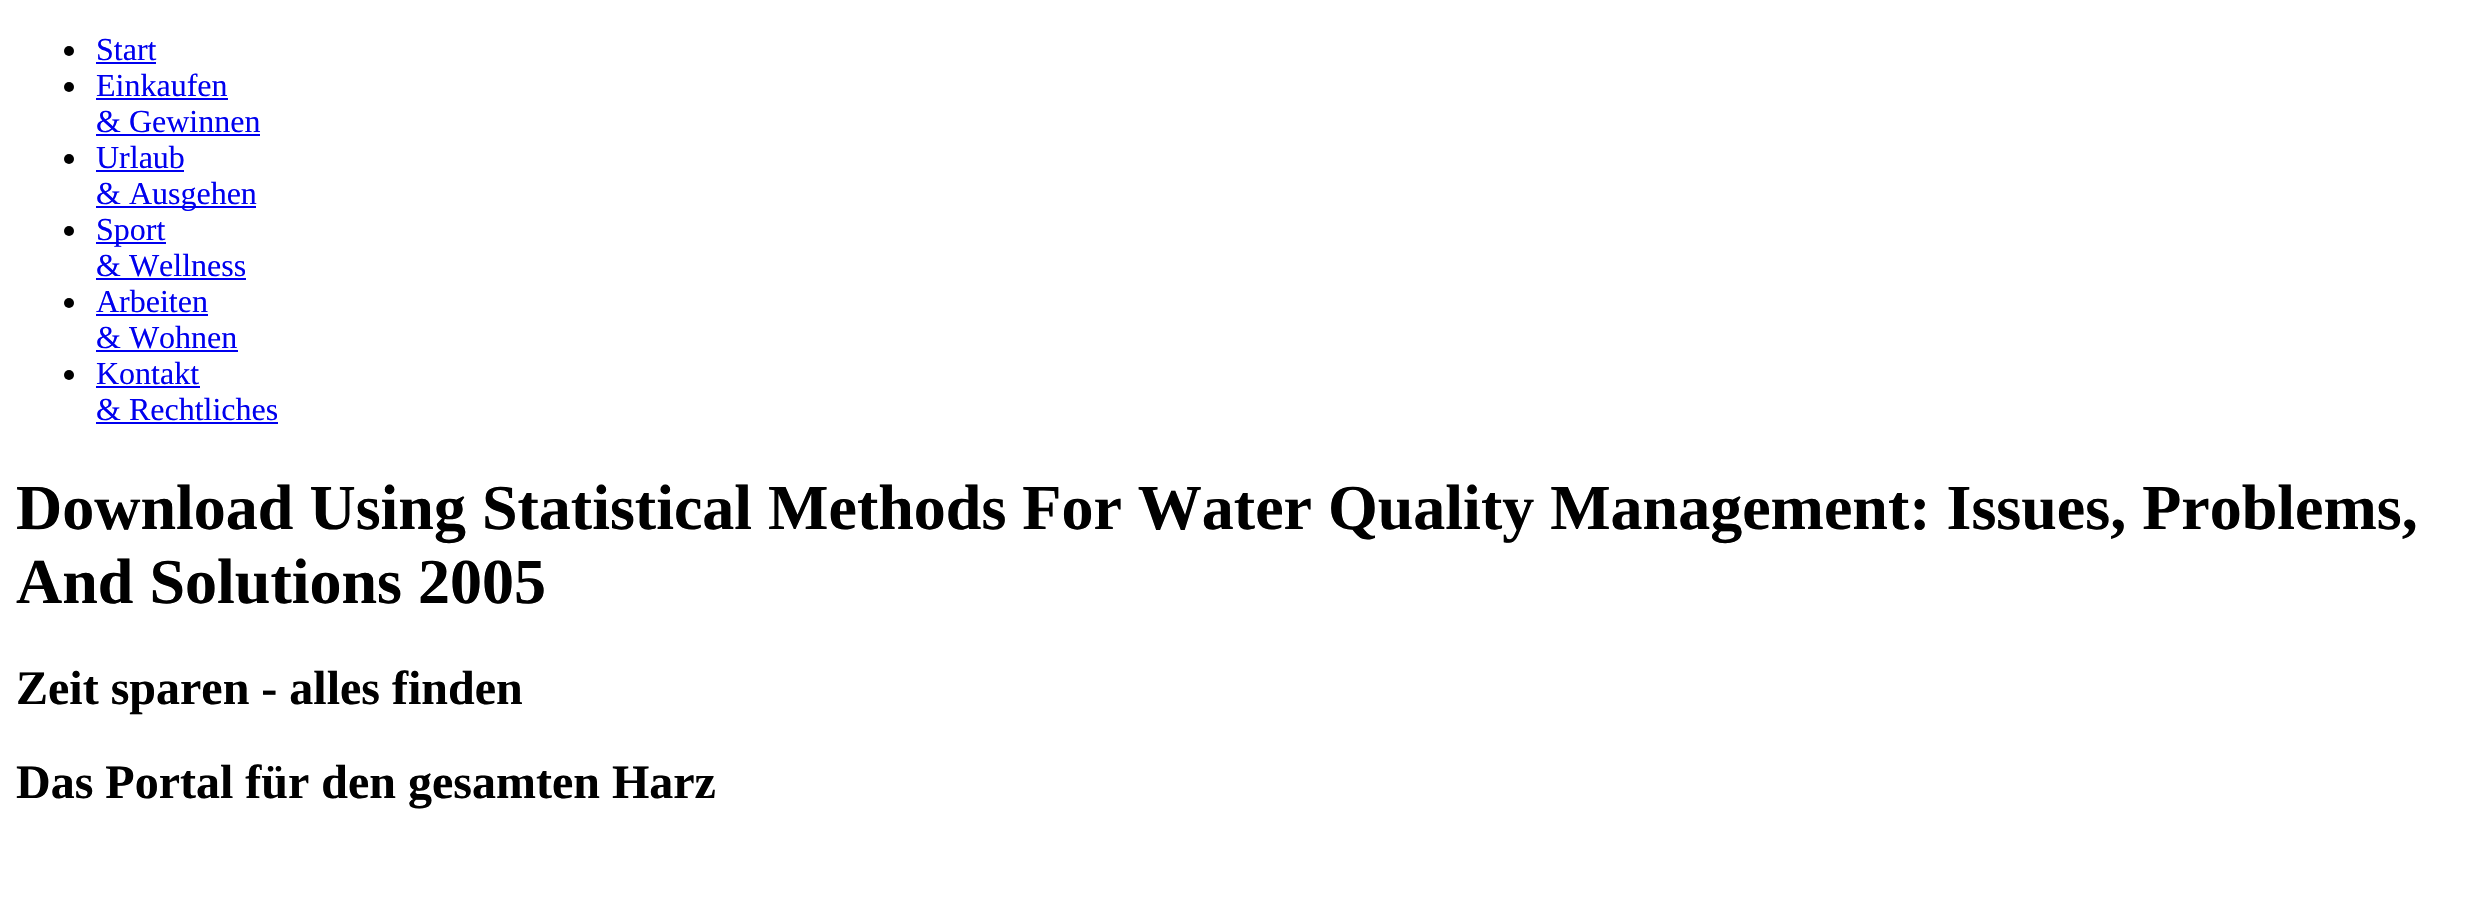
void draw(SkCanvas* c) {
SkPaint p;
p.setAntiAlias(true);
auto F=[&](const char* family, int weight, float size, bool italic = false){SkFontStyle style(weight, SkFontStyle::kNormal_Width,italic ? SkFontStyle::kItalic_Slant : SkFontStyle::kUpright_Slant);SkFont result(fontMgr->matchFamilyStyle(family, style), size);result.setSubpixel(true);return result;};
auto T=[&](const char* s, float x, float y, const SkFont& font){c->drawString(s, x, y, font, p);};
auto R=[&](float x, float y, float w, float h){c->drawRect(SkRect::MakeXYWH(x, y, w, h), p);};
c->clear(0xffffffff);
p.setColor(0xff000000);
c->drawCircle(69,51,5,p);
auto f1 = F("Liberation Serif",400,32);
p.setColor(0xff0000ee);
T("Start",96,60,f1);
R(96,62,60,2);
p.setColor(0xff000000);
c->drawCircle(69,87,5,p);
p.setColor(0xff0000ee);
T("Einkaufen",96,96,f1);
R(96,98,132,2);
T("& Gewinnen",96,132,f1);
R(96,134,164,2);
p.setColor(0xff000000);
c->drawCircle(69,159,5,p);
p.setColor(0xff0000ee);
T("Urlaub",96,168,f1);
R(96,170,88,2);
R(96,206,160,2);
T("& Ausgehen",96,204,f1);
p.setColor(0xff000000);
c->drawCircle(69,231,5,p);
p.setColor(0xff0000ee);
R(96,242,70,2);
T("Sport",96,240,f1);
T("& Wellness",96,276,f1);
R(96,278,150,2);
p.setColor(0xff000000);
c->drawCircle(69,303,5,p);
p.setColor(0xff0000ee);
T("Arbeiten",96,312,f1);
R(96,314,112,2);
T("& Wohnen",96,348,f1);
R(96,350,142,2);
p.setColor(0xff000000);
c->drawCircle(69,375,5,p);
p.setColor(0xff0000ee);
T("Kontakt",96,384,f1);
R(96,386,104,2);
T("& Rechtliches",96,420,f1);
R(96,422,182,2);
auto f2 = F("Liberation Serif",700,64);
p.setColor(0xff000000);
T("Download Using Statistical Methods For Water Quality Management: Issues, Problems,",16,529,f2);
T("And Solutions 2005",16,603,f2);
auto f3 = F("Liberation Serif",700,48);
T("Zeit sparen - alles finden",16,704,f3);
T("Das Portal für den gesamten Harz",16,798,f3);
}
